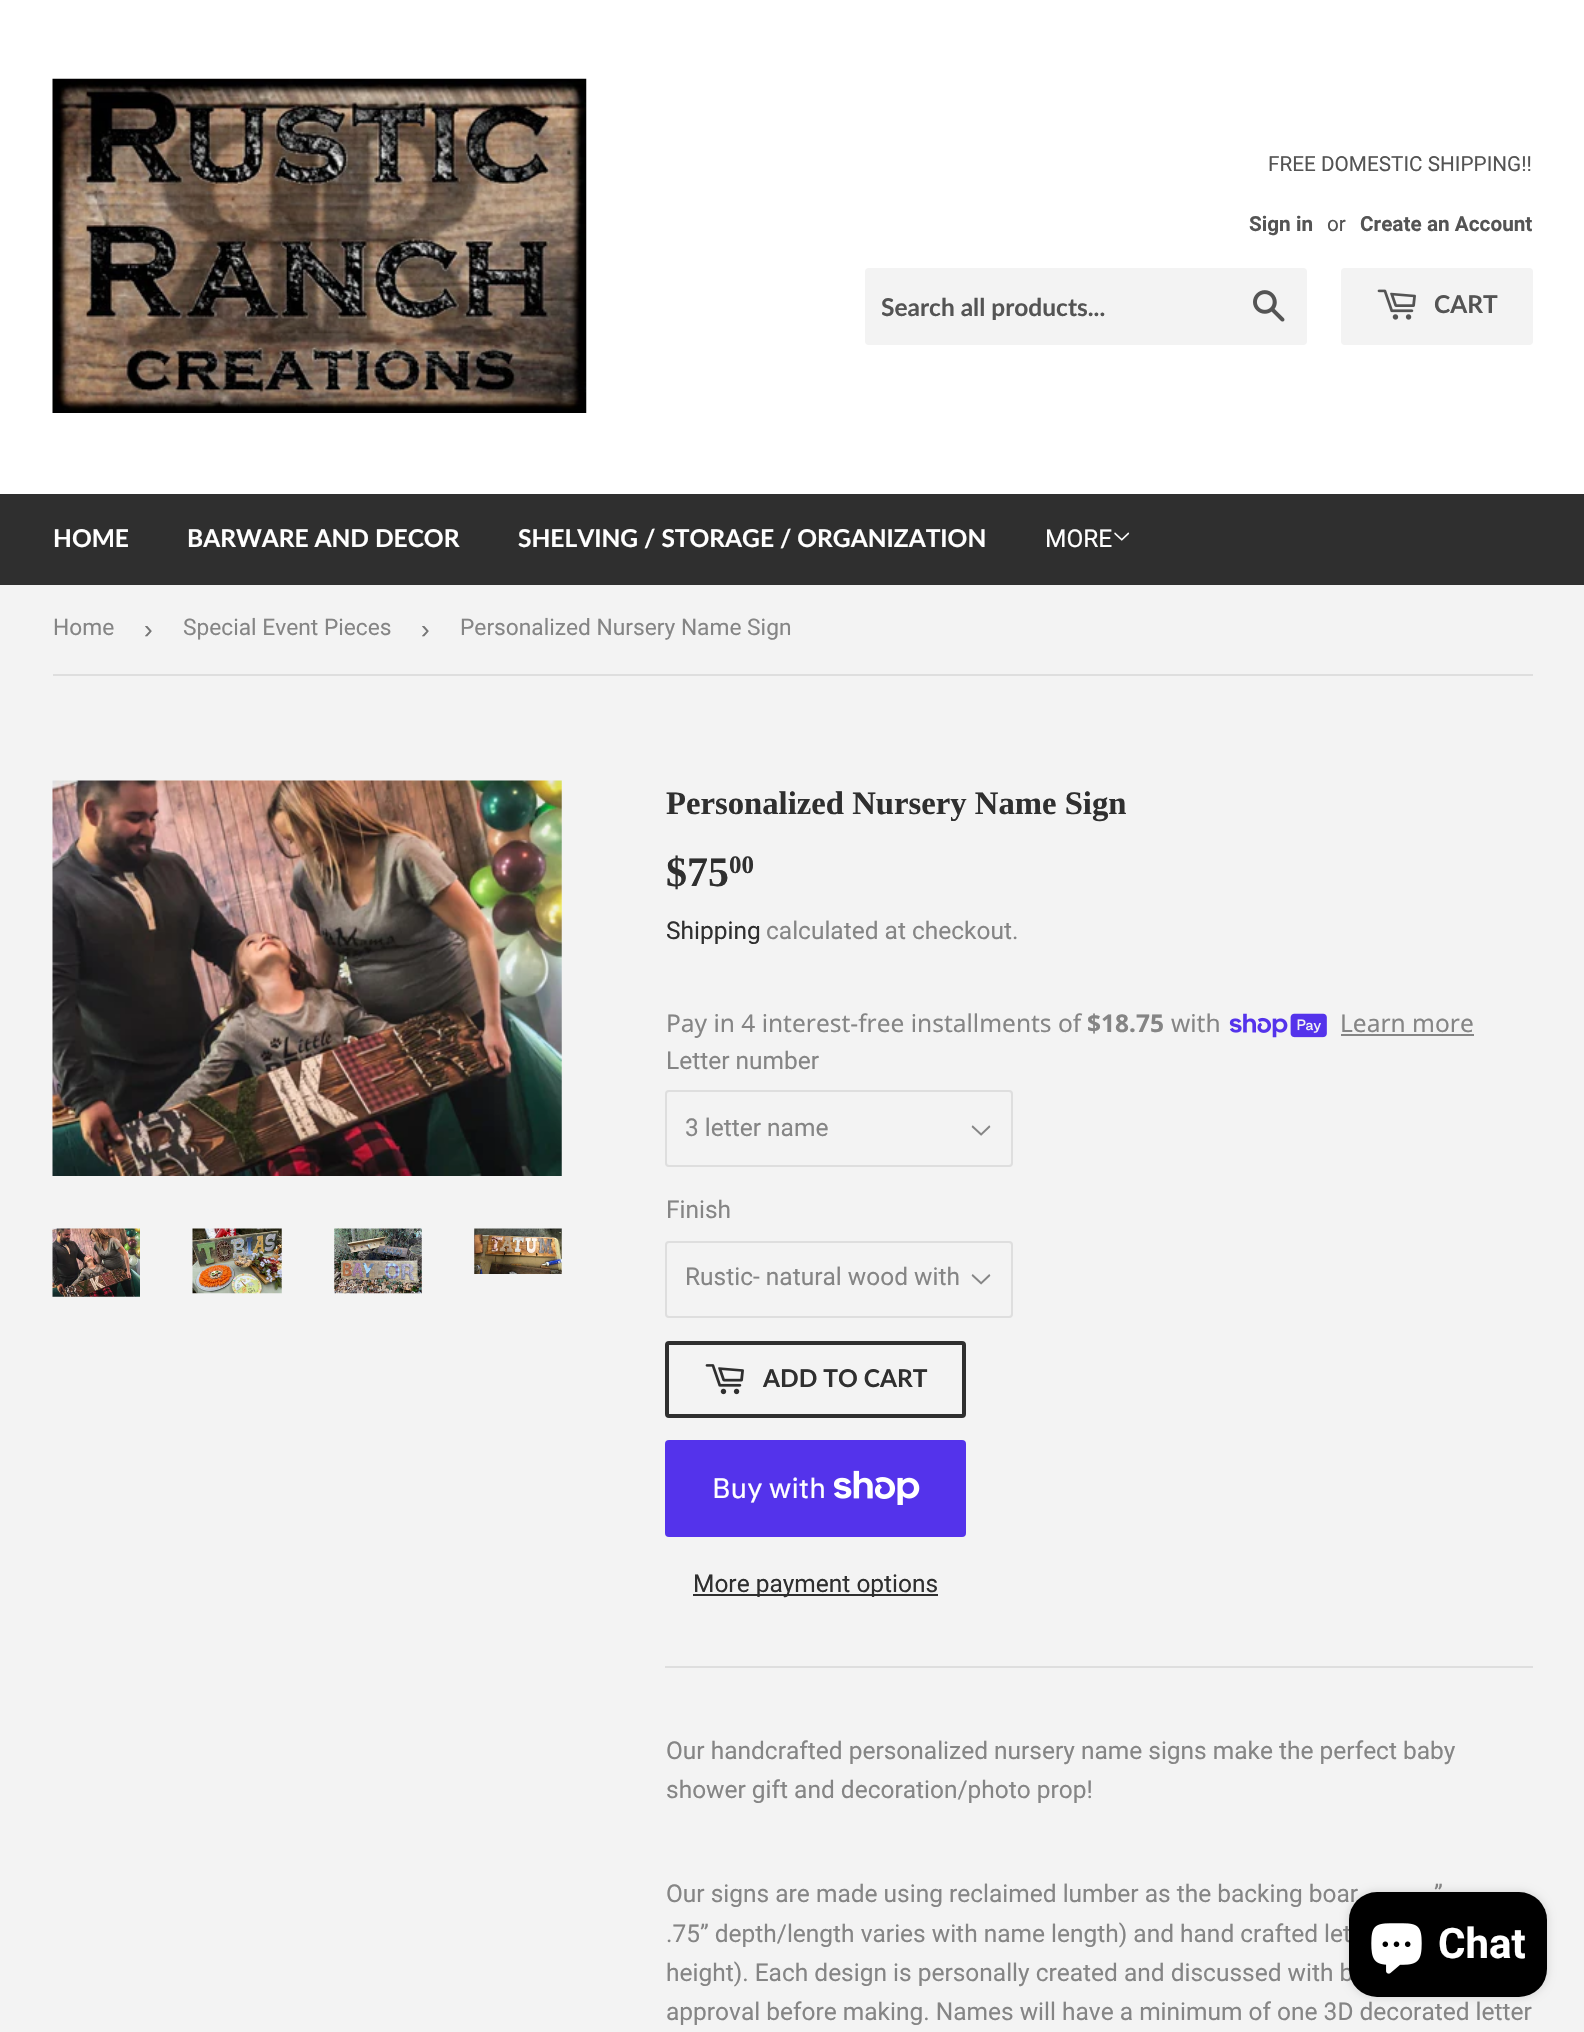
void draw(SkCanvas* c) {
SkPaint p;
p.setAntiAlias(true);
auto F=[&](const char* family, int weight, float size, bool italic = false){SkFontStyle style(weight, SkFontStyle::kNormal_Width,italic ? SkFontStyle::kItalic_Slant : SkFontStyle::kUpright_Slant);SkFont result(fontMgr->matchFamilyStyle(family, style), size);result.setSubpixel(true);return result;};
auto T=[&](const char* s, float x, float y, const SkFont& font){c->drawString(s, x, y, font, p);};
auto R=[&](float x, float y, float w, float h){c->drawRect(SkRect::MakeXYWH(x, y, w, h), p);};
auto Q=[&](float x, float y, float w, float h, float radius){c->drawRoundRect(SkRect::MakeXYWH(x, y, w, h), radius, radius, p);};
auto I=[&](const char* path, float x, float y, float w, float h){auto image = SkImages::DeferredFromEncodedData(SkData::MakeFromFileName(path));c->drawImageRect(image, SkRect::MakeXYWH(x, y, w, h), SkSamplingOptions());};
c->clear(0xfff3f3f3);
p.setColor(0xffffffff);
R(0,0,1584,494);
I("1.png",52,78,535,335);
auto f1 = F("Roboto",400,20.75);
p.setColor(0xff545454);
T("FREE DOMESTIC SHIPPING!!",1268,171,f1);
auto f2 = F("Roboto",700,20.75);
T("Sign in",1249,231,f2);
T("or",1327,231,f1);
T("Create an Account",1360,231,f2);
p.setColor(0xfff3f3f3);
Q(865,268,442,77,4);
c->save();
c->clipRect(SkRect::MakeXYWH(882,291,340,29));
auto f3 = F("Lato",700,24.5);
p.setColor(0xff545454);
T("Search all products...",881,316,f3);
c->restore();
I("2.png",1253,290,32,32);
p.setColor(0xfff3f3f3);
Q(1341,268,192,77,4);
I("3.png",1377,289,39,31);
p.setColor(0xff545454);
T("CART",1434,313,f3);
p.setColor(0xff2f2f2f);
R(0,494,1584,91);
p.setColor(0xffffffff);
T("HOME",53,547,f3);
T("BARWARE AND DECOR",187,547,f3);
T("SHELVING / STORAGE / ORGANIZATION",518,547,f3);
auto f4 = F("Roboto",400,24.5);
T("MORE",1045,547,f4);
I("4.png",1114,532,16,9);
p.setColor(0xffdedede);
R(53,674,1480,2);
auto f5 = F("Roboto",400,22.75);
p.setColor(0xff858585);
T("Home",53,635,f5);
auto f6 = F("Liberation Sans",400,26);
p.setColor(0xff767676);
T("›",144,638,f6);
p.setColor(0xff858585);
T("Special Event Pieces",183,635,f5);
p.setColor(0xff767676);
T("›",421,638,f6);
p.setColor(0xff858585);
T("Personalized Nursery Name Sign",460,635,f5);
I("5.png",52,780,510,396);
I("6.png",52,1228,88,69);
I("7.png",192,1228,90,66);
I("8.png",334,1228,88,66);
I("9.png",474,1228,88,46);
auto f7 = F("Liberation Serif",700,32.7);
p.setColor(0xff2f2f2f);
T("Personalized Nursery Name Sign",666,814,f7);
auto f8 = F("Liberation Serif",700,42);
T("$75",666,886,f8);
auto f9 = F("Liberation Serif",700,25);
T("00",729,873,f9);
T("Shipping",666,939,f4);
p.setColor(0xff858585);
T("calculated at checkout.",766,939,f4);
auto f10 = F("Noto Sans",400,24.5);
T("Pay in 4 interest-free installments of",666,1032,f10);
auto f11 = F("Noto Sans",700,24.5);
T("$18.75",1087,1032,f11);
T("with",1171,1032,f10);
I("10.png",1229,1013,98,25);
T("Learn more",1340,1032,f10);
R(1341,1034,133,2);
T("Letter number",666,1069,f4);
I("11.png",971,1125,20,11);
p.setStroke(true);
p.setStrokeWidth(2);
p.setColor(0xffdedede);
c->drawRoundRect(SkRect::MakeXYWH(666,1091,346,75),3,3,p);
p.setStroke(false);
p.setColor(0xff858585);
T("3 letter name",685,1136,f4);
T("Finish",666,1218,f4);
I("12.png",971,1274,20,11);
p.setStroke(true);
p.setColor(0xffdedede);
c->drawRoundRect(SkRect::MakeXYWH(666,1242,346,75),3,3,p);
p.setStroke(false);
p.setColor(0xff858585);
T("Rustic- natural wood with",685,1285,f4);
p.setStroke(true);
p.setStrokeWidth(4);
p.setColor(0xff2f2f2f);
c->drawRoundRect(SkRect::MakeXYWH(667,1343,297,73),2,2,p);
I("13.png",705,1364,39,31);
p.setStroke(false);
T("ADD TO CART",763,1387,f3);
p.setColor(0xff5433eb);
Q(665,1440,301,97,4);
auto f12 = F("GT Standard",400,28);
p.setColor(0xffffffff);
T("Buy with",712,1498,f12);
I("14.png",834,1470,86,35);
p.setColor(0xff2f2f2f);
R(693,1594,245,2);
T("More payment options",693,1592,f4);
p.setColor(0xffdedede);
R(665,1666,868,2);
p.setColor(0xff858585);
T("Our handcrafted personalized nursery name signs make the perfect baby",666,1759,f4);
T("shower gift and decoration/photo prop!",666,1798,f4);
T("Our signs are made using reclaimed lumber as the backing boar",666,1902,f4);
T("”",1434,1902,f4);
T(".75” depth/length varies with name length) and hand crafted let",666,1942,f4);
T("height). Each design is personally created and discussed with b",666,1981,f4);
T("approval before making. Names will have a minimum of one 3D decorated letter",666,2020,f4);
p.setColor(0x26000000);
p.setMaskFilter(SkMaskFilter::MakeBlur(kNormal_SkBlurStyle, 4.5));
c->drawRoundRect(SkRect::MakeXYWH(1349,1892,198,105),28,28,p);
p.setMaskFilter(nullptr);
p.setColor(0xff000000);
Q(1349,1892,198,105,28);
I("15.png",1371,1923,51,51);
auto f13 = F("Roboto",700,42);
p.setColor(0xffffffff);
T("Chat",1438,1958,f13);
}
